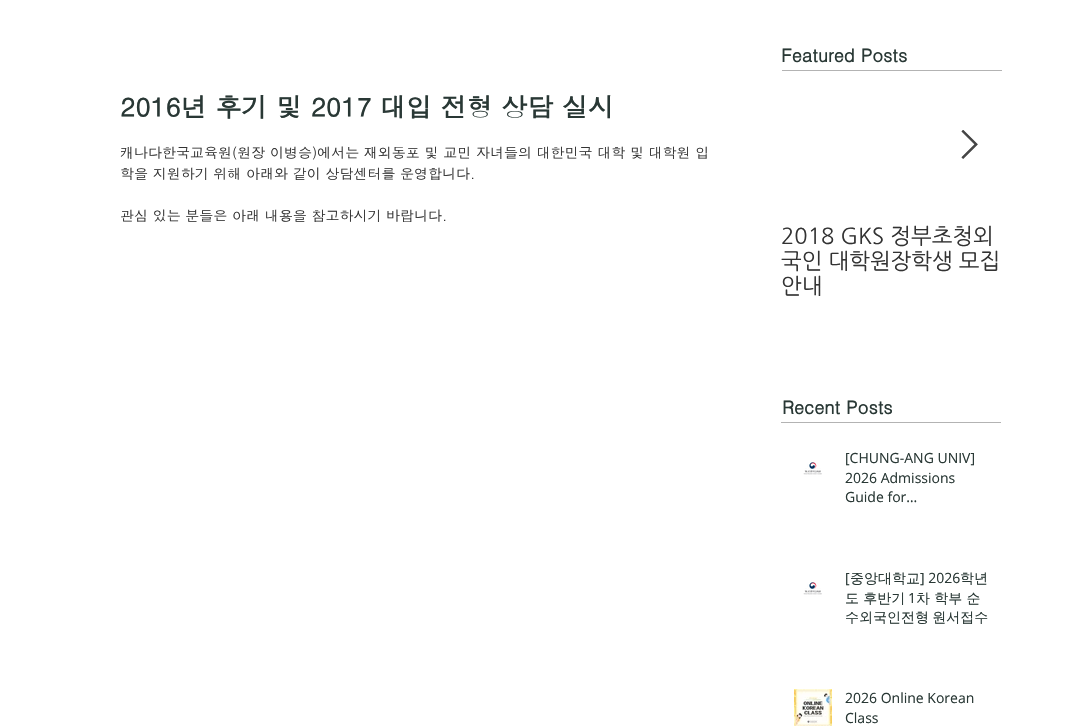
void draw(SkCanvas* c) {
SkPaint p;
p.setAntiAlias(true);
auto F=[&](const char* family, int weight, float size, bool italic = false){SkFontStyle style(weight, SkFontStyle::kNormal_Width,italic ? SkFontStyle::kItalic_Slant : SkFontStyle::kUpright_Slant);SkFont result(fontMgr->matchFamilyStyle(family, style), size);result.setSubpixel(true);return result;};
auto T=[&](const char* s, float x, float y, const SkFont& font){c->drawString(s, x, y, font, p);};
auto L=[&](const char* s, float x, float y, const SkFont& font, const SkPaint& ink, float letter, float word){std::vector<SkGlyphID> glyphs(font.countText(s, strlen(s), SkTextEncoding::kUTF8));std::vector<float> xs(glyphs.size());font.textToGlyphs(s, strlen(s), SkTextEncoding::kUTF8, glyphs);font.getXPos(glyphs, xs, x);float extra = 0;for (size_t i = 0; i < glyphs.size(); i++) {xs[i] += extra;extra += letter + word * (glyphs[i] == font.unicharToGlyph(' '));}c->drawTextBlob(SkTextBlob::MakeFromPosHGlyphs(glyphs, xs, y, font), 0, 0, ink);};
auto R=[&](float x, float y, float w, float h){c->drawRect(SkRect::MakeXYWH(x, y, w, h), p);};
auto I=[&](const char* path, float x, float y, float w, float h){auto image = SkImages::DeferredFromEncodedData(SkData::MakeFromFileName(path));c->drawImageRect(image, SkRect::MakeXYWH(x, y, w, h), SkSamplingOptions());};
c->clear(0xffffffff);
auto f1 = F("Dotum",700,18);
p.setColor(0xff293835);
T("Featured Posts",781,62,f1);
p.setColor(0xffb3b3b3);
R(782,70,220,1);
auto f2 = F("Dotum",700,26);
p.setColor(0xff293835);
T("2016년 후기 및 2017 대입 전형 상담 실시",120,117,f2);
auto f3 = F("Dotum",400,14);
p.setColor(0xff333333);
T("캐나다한국교육원(원장 이병승)에서는 재외동포 및 교민 자녀들의 대한민국 대학 및 대학원 입",120,158,f3);
T("학을 지원하기 위해 아래와 같이 상담센터를 운영합니다.",120,179,f3);
T("관심 있는 분들은 아래 내용을 참고하시기 바랍니다.",120,221,f3);
I("1.png",961,130,17,29);
auto f4 = F("NanumGothic",400,22);
T("2018 GKS 정부초청외",781,243,f4);
T("국인 대학원장학생 모집",781,268,f4);
T("안내",781,293,f4);
p.setColor(0xff293835);
T("Recent Posts",782,414,f1);
p.setColor(0xffb3b3b3);
R(781,422,220,1);
I("2.png",802,457,21,22);
auto f5 = F("Open Sans",400,14);
p.setColor(0xff293835);
T("[CHUNG-ANG UNIV]",845,463,f5);
T("2026 Admissions",845,483,f5);
T("Guide for…",845,502,f5);
I("2.png",802,577,21,22);
T("[",845,583,f5);
auto f6 = F("WenQuanYi Zen Hei",500,14);
T("중앙대학교",850,583,f6);
T("] 2026",920,583,f5);
T("학년",960,583,f6);
T("도 후반기",845,603,f6);
T("1",908,603,f5);
T("차 학부 순",916,603,f6);
L("수외국인전형 원서접수",845,622,f6,p,0,-1);
I("3.png",794,689,38,37);
T("2026 Online Korean",845,703,f5);
T("Class",845,723,f5);
}
